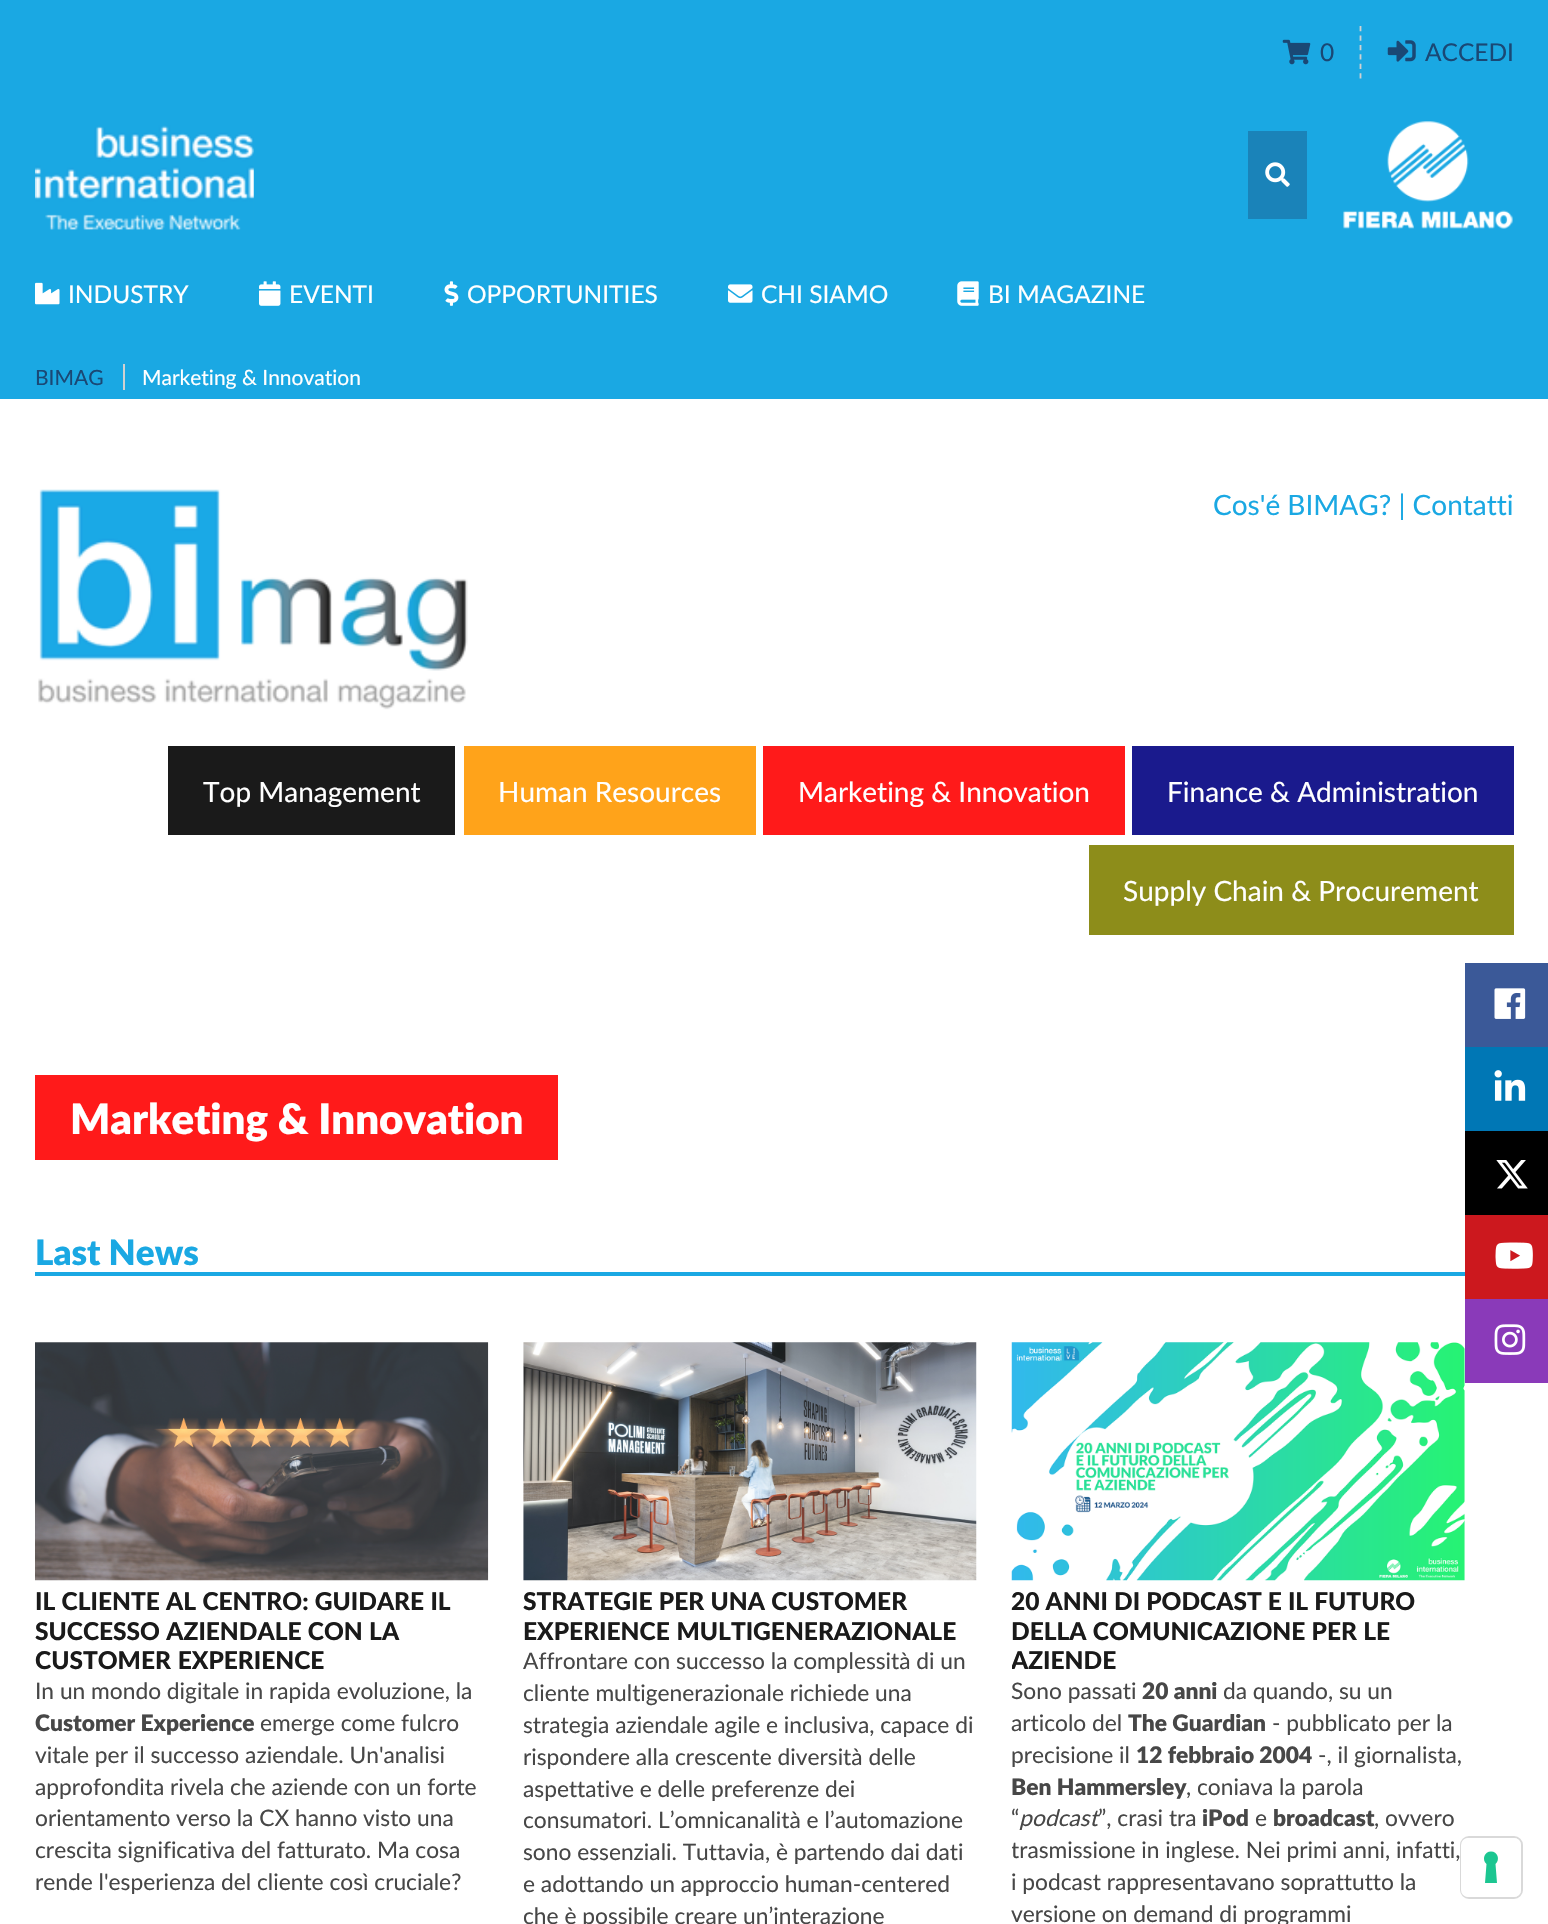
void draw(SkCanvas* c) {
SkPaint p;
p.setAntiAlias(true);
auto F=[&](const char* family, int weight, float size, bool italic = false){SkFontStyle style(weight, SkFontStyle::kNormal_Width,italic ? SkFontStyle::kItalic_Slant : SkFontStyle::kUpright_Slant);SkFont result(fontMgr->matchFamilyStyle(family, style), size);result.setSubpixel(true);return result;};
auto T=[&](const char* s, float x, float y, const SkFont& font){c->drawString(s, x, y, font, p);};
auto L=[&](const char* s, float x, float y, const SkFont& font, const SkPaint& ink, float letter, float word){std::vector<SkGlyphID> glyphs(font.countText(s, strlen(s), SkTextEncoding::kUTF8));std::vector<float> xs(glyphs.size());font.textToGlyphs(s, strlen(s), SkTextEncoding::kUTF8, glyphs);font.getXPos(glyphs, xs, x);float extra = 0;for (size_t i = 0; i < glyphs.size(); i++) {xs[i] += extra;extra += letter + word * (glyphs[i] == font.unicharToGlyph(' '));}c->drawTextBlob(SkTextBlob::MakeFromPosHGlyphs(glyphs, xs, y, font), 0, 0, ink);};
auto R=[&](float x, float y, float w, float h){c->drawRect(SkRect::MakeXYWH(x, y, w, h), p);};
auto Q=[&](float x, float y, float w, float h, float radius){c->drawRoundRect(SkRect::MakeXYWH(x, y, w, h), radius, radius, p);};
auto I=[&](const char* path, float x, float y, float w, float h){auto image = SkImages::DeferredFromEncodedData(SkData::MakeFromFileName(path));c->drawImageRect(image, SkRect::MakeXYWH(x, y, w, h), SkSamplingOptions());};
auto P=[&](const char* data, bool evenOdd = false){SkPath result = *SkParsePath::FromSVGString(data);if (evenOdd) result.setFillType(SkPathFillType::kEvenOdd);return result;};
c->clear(0xffffffff);
p.setColor(0xff1aa8e3);
R(0,0,1548,399);
p.setStroke(true);
p.setStrokeWidth(1.8);
p.setColor(0xffd1d1d1);
p.setPathEffect(SkDashPathEffect::Make({{5.25f,4.2f}}, 0));
c->drawPath(P("M1360.5 26v53"),p);
p.setPathEffect(nullptr);
I("1.png",1282,39,29,26);
auto f1 = F("Lato",400,24.5);
p.setStroke(false);
p.setColor(0xff1a4875);
T("0",1320,61,f1);
I("2.png",1387,40,29,22);
T("ACCEDI",1425,61,f1);
I("3.png",35,125,219,105);
p.setColor(0xff1a83b9);
R(1248,131,59,88);
I("4.png",1265,162,25,25);
I("5.png",1343,121,170,108);
I("6.png",35,282,25,23);
p.setColor(0xffffffff);
T("INDUSTRY",68,303,f1);
I("7.png",259,281,22,25);
T("EVENTI",289,303,f1);
I("8.png",444,281,15,25);
T("OPPORTUNITIES",467,303,f1);
I("9.png",728,284,25,19);
T("CHI SIAMO",761,303,f1);
I("10.png",957,281,22,25);
T("BI MAGAZINE",988,303,f1);
p.setColor(0xffd1d1d1);
R(123,364,2,26);
auto f2 = F("Lato",400,21);
p.setColor(0xff1a4875);
T("BIMAG",35,385,f2);
p.setColor(0xffffffff);
T("Marketing & Innovation",142,385,f2);
I("11.png",38,489,430,221);
auto f3 = F("Lato",400,28);
p.setColor(0xff1aa8e3);
T("Cos'é BIMAG? | Contatti",1213,515,f3);
p.setColor(0xff1a1a1a);
R(168,746,287,89);
p.setColor(0xffffffff);
T("Top Management",203,802,f3);
p.setColor(0xffffa31a);
R(464,746,292,89);
p.setColor(0xffffffff);
T("Human Resources",498,802,f3);
p.setColor(0xffff1a1a);
R(763,746,362,89);
p.setColor(0xffffffff);
T("Marketing & Innovation",798,802,f3);
p.setColor(0xff1a1a8d);
R(1132,746,382,89);
p.setColor(0xffffffff);
T("Finance & Administration",1167,802,f3);
p.setColor(0xff8d8d1a);
R(1089,845,425,90);
p.setColor(0xffffffff);
T("Supply Chain & Procurement",1123,901,f3);
p.setColor(0xffff1a1a);
R(35,1075,523,85);
auto f4 = F("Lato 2",900,42);
p.setColor(0xffffffff);
T("Marketing & Innovation",70,1134,f4);
auto f5 = F("Lato 2",900,35);
p.setColor(0xff1aa8e3);
T("Last News",35,1265,f5);
R(35,1272,1430,4);
I("12.png",35,1342,454,239);
auto f6 = F("Lato",900,24.5);
p.setColor(0xff1a1a1a);
L("IL CLIENTE AL CENTRO: GUIDARE IL",35,1610,f6,p,0,.5);
L("SUCCESSO AZIENDALE CON LA",35,1640,f6,p,0,.5);
L("CUSTOMER EXPERIENCE",35,1669,f6,p,0,1);
auto f7 = F("Lato",400,22.75);
p.setColor(0xff474747);
T("In un mondo digitale in rapida evoluzione, la",35,1699,f7);
auto f8 = F("Lato 2",900,22.75);
T("Customer Experience",35,1731,f8);
T("emerge come fulcro",260,1731,f7);
T("vitale per il successo aziendale. Un'analisi",35,1763,f7);
T("approfondita rivela che aziende con un forte",35,1795,f7);
T("orientamento verso la CX hanno visto una",35,1826,f7);
T("crescita significativa del fatturato. Ma cosa",35,1858,f7);
T("rende l'esperienza del cliente così cruciale?",35,1890,f7);
I("13.png",523,1342,454,239);
p.setColor(0xff1a1a1a);
L("STRATEGIE PER UNA CUSTOMER",523,1610,f6,p,0,.5);
L("EXPERIENCE MULTIGENERAZIONALE",523,1640,f6,p,0,1);
p.setColor(0xff474747);
T("Affrontare con successo la complessità di un",523,1669,f7);
T("cliente multigenerazionale richiede una",523,1701,f7);
T("strategia aziendale agile e inclusiva, capace di",523,1733,f7);
T("rispondere alla crescente diversità delle",523,1765,f7);
T("aspettative e delle preferenze dei",523,1797,f7);
T("consumatori. L’omnicanalità e l’automazione",523,1828,f7);
T("sono essenziali. Tuttavia, è partendo dai dati",523,1860,f7);
T("e adottando un approccio human-centered",523,1892,f7);
T("che è possibile creare un’interazione",523,1924,f7);
I("14.png",1011,1342,454,239);
p.setColor(0xff1a1a1a);
L("20 ANNI DI PODCAST E IL FUTURO",1011,1610,f6,p,0,.25);
L("DELLA COMUNICAZIONE PER LE",1011,1640,f6,p,0,.5);
c->save();
c->clipRect(SkRect::MakeXYWH(1012,1325,453,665));
T("AZIENDE",1011,1669,f6);
c->restore();
p.setColor(0xff474747);
T("Sono passati",1011,1699,f7);
T("20 anni",1142,1699,f8);
T("da quando, su un",1223,1699,f7);
T("articolo del",1011,1731,f7);
T("The Guardian",1128,1731,f8);
T("- pubblicato per la",1272,1731,f7);
T("precisione il",1011,1763,f7);
T("12 febbraio 2004",1136,1763,f8);
T("-, il giornalista,",1318,1763,f7);
T("Ben Hammersley",1011,1795,f8);
T(", coniava la parola",1186,1795,f7);
T("“",1011,1826,f7);
auto f9 = F("Lato",400,22.75,true);
T("podcast",1019,1826,f9);
T("”, crasi tra",1098,1826,f7);
T("iPod",1202,1826,f8);
T("e",1255,1826,f7);
T("broadcast",1273,1826,f8);
T(", ovvero",1374,1826,f7);
c->save();
c->clipRect(SkRect::MakeXYWH(1012,1325,453,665));
T("trasmissione in inglese. Nei primi anni, infatti,",1011,1858,f7);
c->restore();
T("i podcast rappresentavano soprattutto la",1011,1890,f7);
T("versione on demand di programmi",1011,1922,f7);
p.setColor(0xff3b5998);
R(1465,963,83,84);
I("15.png",1494,988,32,31);
p.setColor(0xff0077b5);
R(1465,1047,83,84);
I("16.png",1494,1070,32,31);
p.setColor(0xff000000);
R(1465,1131,83,84);
I("17.png",1496,1160,32,29);
p.setColor(0xffcc181e);
R(1465,1215,83,84);
I("18.png",1495,1242,38,27);
p.setColor(0xff8a3ab9);
R(1465,1299,83,84);
I("19.png",1494,1324,32,31);
p.setStroke(true);
p.setStrokeWidth(2);
p.setColor(0xffd9d9d9);
c->drawRoundRect(SkRect::MakeXYWH(1461,1837,61,61),8,8,p);
p.setStroke(false);
p.setColor(0xffffffff);
Q(1461,1838,60,59,7);
p.setColor(0xff1cc691);
c->drawPath(P("M1491 1851.5c6.5 0 9.5 8 4.5 12.5l1.5 19h-12l1.5-19c-5-4.5-2-12.5 4.5-12.5z",true),p);
}
